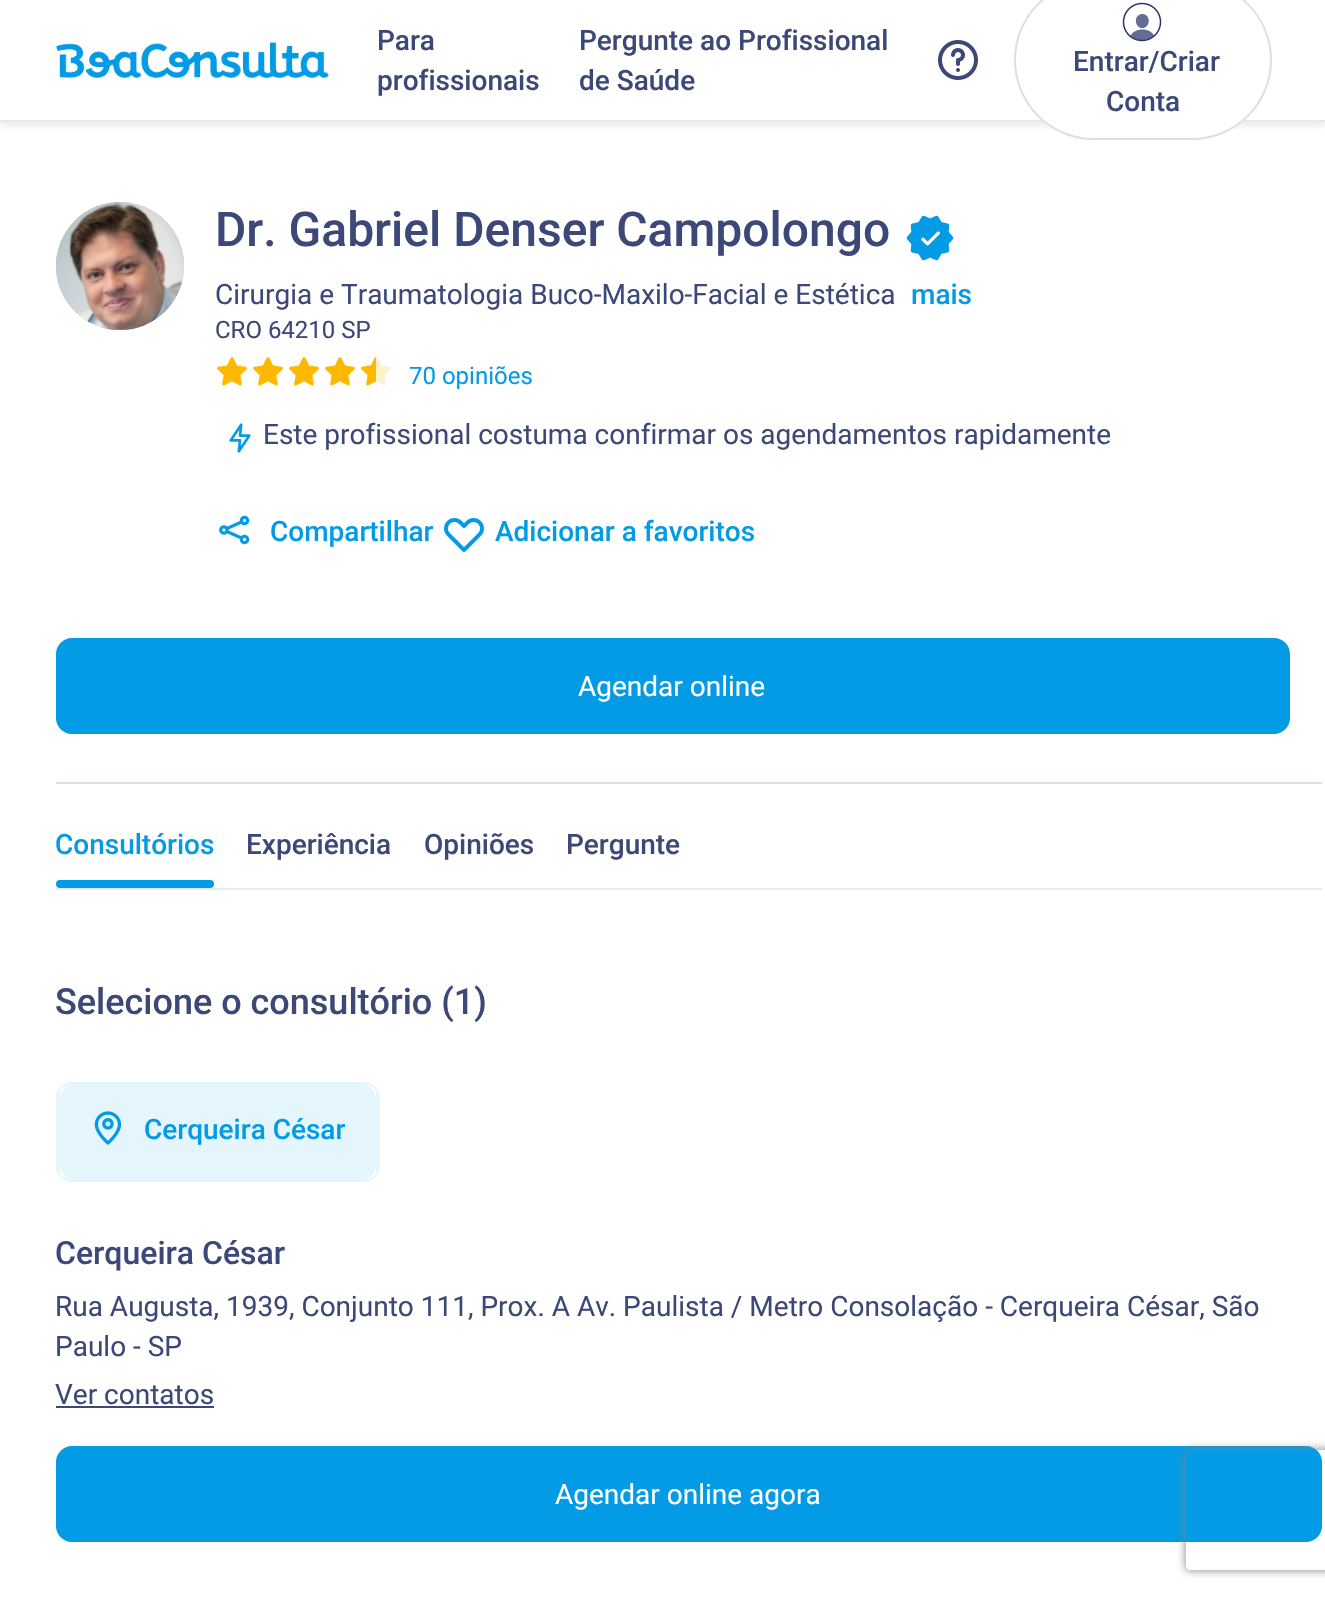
void draw(SkCanvas* c) {
SkPaint p;
p.setAntiAlias(true);
auto F=[&](const char* family, int weight, float size, bool italic = false){SkFontStyle style(weight, SkFontStyle::kNormal_Width,italic ? SkFontStyle::kItalic_Slant : SkFontStyle::kUpright_Slant);SkFont result(fontMgr->matchFamilyStyle(family, style), size);result.setSubpixel(true);return result;};
auto T=[&](const char* s, float x, float y, const SkFont& font){c->drawString(s, x, y, font, p);};
auto R=[&](float x, float y, float w, float h){c->drawRect(SkRect::MakeXYWH(x, y, w, h), p);};
auto Q=[&](float x, float y, float w, float h, float radius){c->drawRoundRect(SkRect::MakeXYWH(x, y, w, h), radius, radius, p);};
auto I=[&](const char* path, float x, float y, float w, float h){auto image = SkImages::DeferredFromEncodedData(SkData::MakeFromFileName(path));c->drawImageRect(image, SkRect::MakeXYWH(x, y, w, h), SkSamplingOptions());};
auto P=[&](const char* data, bool evenOdd = false){SkPath result = *SkParsePath::FromSVGString(data);if (evenOdd) result.setFillType(SkPathFillType::kEvenOdd);return result;};
c->clear(0xffffffff);
c->save();
c->clipRect(SkRect::MakeXYWH(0,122,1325,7));
p.setColor(0x1a273569);
p.setMaskFilter(SkMaskFilter::MakeBlur(kNormal_SkBlurStyle, 4));
c->drawRect(SkRect::MakeXYWH(0,4,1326,122),p);
p.setMaskFilter(nullptr);
c->restore();
p.setColor(0xffe6eaef);
R(0,120,1325,2);
I("1.png",56,42,273,36);
auto f1 = F("Roboto",500,28);
p.setColor(0xff3c4978);
T("Para",377,50,f1);
T("profissionais",377,90,f1);
T("Pergunte ao Profissional",579,50,f1);
T("de Saúde",579,90,f1);
I("2.png",938,40,40,40);
p.setColor(0xffffffff);
c->drawRoundRect(SkRect::MakeXYWH(1015,-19,256,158),79,79,p);
p.setStroke(true);
p.setStrokeWidth(2);
p.setColor(0xffdae0e6);
c->drawRoundRect(SkRect::MakeXYWH(1015,-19,256,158),79,79,p);
I("3.png",1122,2,40,40);
p.setStroke(false);
p.setColor(0xff3c4978);
T("Entrar/Criar",1073,71,f1);
T("Conta",1106,111,f1);
p.setColor(0xffb5c1ce);
c->drawCircle(120,266,64,p);
I("4.png",56,202,128,128);
auto f2 = F("Roboto",500,48);
p.setColor(0xff3c4978);
T("Dr. Gabriel Denser Campolongo",215,246,f2);
I("5.png",906,215,48,46);
auto f3 = F("Roboto",400,28);
T("Cirurgia e Traumatologia Buco-Maxilo-Facial e Estética",215,304,f3);
p.setColor(0xff039be5);
T("mais",911,304,f1);
auto f4 = F("Roboto",400,24);
p.setColor(0xff3c4978);
T("CRO 64210 SP",215,338,f4);
I("6.png",217,357,30,29);
I("6.png",253,357,30,29);
I("6.png",289,357,30,29);
I("6.png",325,357,30,29);
I("7.png",361,357,30,29);
p.setColor(0xff039be5);
T("70 opiniões",409,384,f4);
I("8.png",229,423,22,30);
p.setColor(0xff3c4978);
T("Este profissional costuma confirmar os agendamentos rapidamente",263,444,f3);
I("9.png",219,515,31,30);
p.setColor(0xff039be5);
T("Compartilhar",270,541,f1);
I("10.png",444,518,40,34);
T("Adicionar a favoritos",495,541,f1);
p.setColor(0xffdae0e6);
R(56,782,1266,2);
p.setColor(0xff039be5);
Q(56,638,1234,96,16);
p.setColor(0xffffffff);
T("Agendar online",578,696,f3);
p.setColor(0xffe6eaef);
R(56,888,1266,2);
p.setColor(0xff039be5);
T("Consultórios",55,854,f1);
Q(56,880,158,8,4);
p.setColor(0xff3c4978);
T("Experiência",246,854,f1);
T("Opiniões",424,854,f1);
T("Pergunte",566,854,f1);
auto f5 = F("Roboto",500,36);
T("Selecione o consultório (1)",55,1014,f5);
p.setStroke(true);
p.setColor(0xffe5f5fc);
c->drawRoundRect(SkRect::MakeXYWH(57,1083,322,98),15,15,p);
p.setStroke(false);
c->drawPath(P("M74 1084h288c8 0 14 7 14 16v64c0 9-6 16-14 16h-288c-8 0-14-7-14-16v-64c0-9 6-16 14-16z"),p);
R(376,1092,2,80);
R(58,1092,2,80);
I("11.png",94,1111,28,34);
p.setColor(0xff039be5);
T("Cerqueira César",144,1139,f1);
auto f6 = F("Roboto",500,32);
p.setColor(0xff3c4978);
T("Cerqueira César",55,1264,f6);
T("Rua Augusta, 1939, Conjunto 111, Prox. A Av. Paulista / Metro Consolação - Cerqueira César, São",55,1316,f3);
T("Paulo - SP",55,1356,f3);
T("Ver contatos",55,1404,f3);
R(56,1406,158,2);
p.setColor(0xff039be5);
Q(56,1446,1266,96,16);
p.setColor(0xffffffff);
T("Agendar online agora",555,1504,f3);
c->save();
c->clipPath(P("M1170 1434h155v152h-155zm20 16h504c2 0 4 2 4 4v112c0 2-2 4-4 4h-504c-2 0-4-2-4-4v-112c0-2 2-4 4-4z",true),true);
p.setColor(0xff808080);
p.setMaskFilter(SkMaskFilter::MakeBlur(kNormal_SkBlurStyle, 5));
c->drawRoundRect(SkRect::MakeXYWH(1186,1450,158,120),4,4,p);
p.setMaskFilter(nullptr);
c->restore();
}
